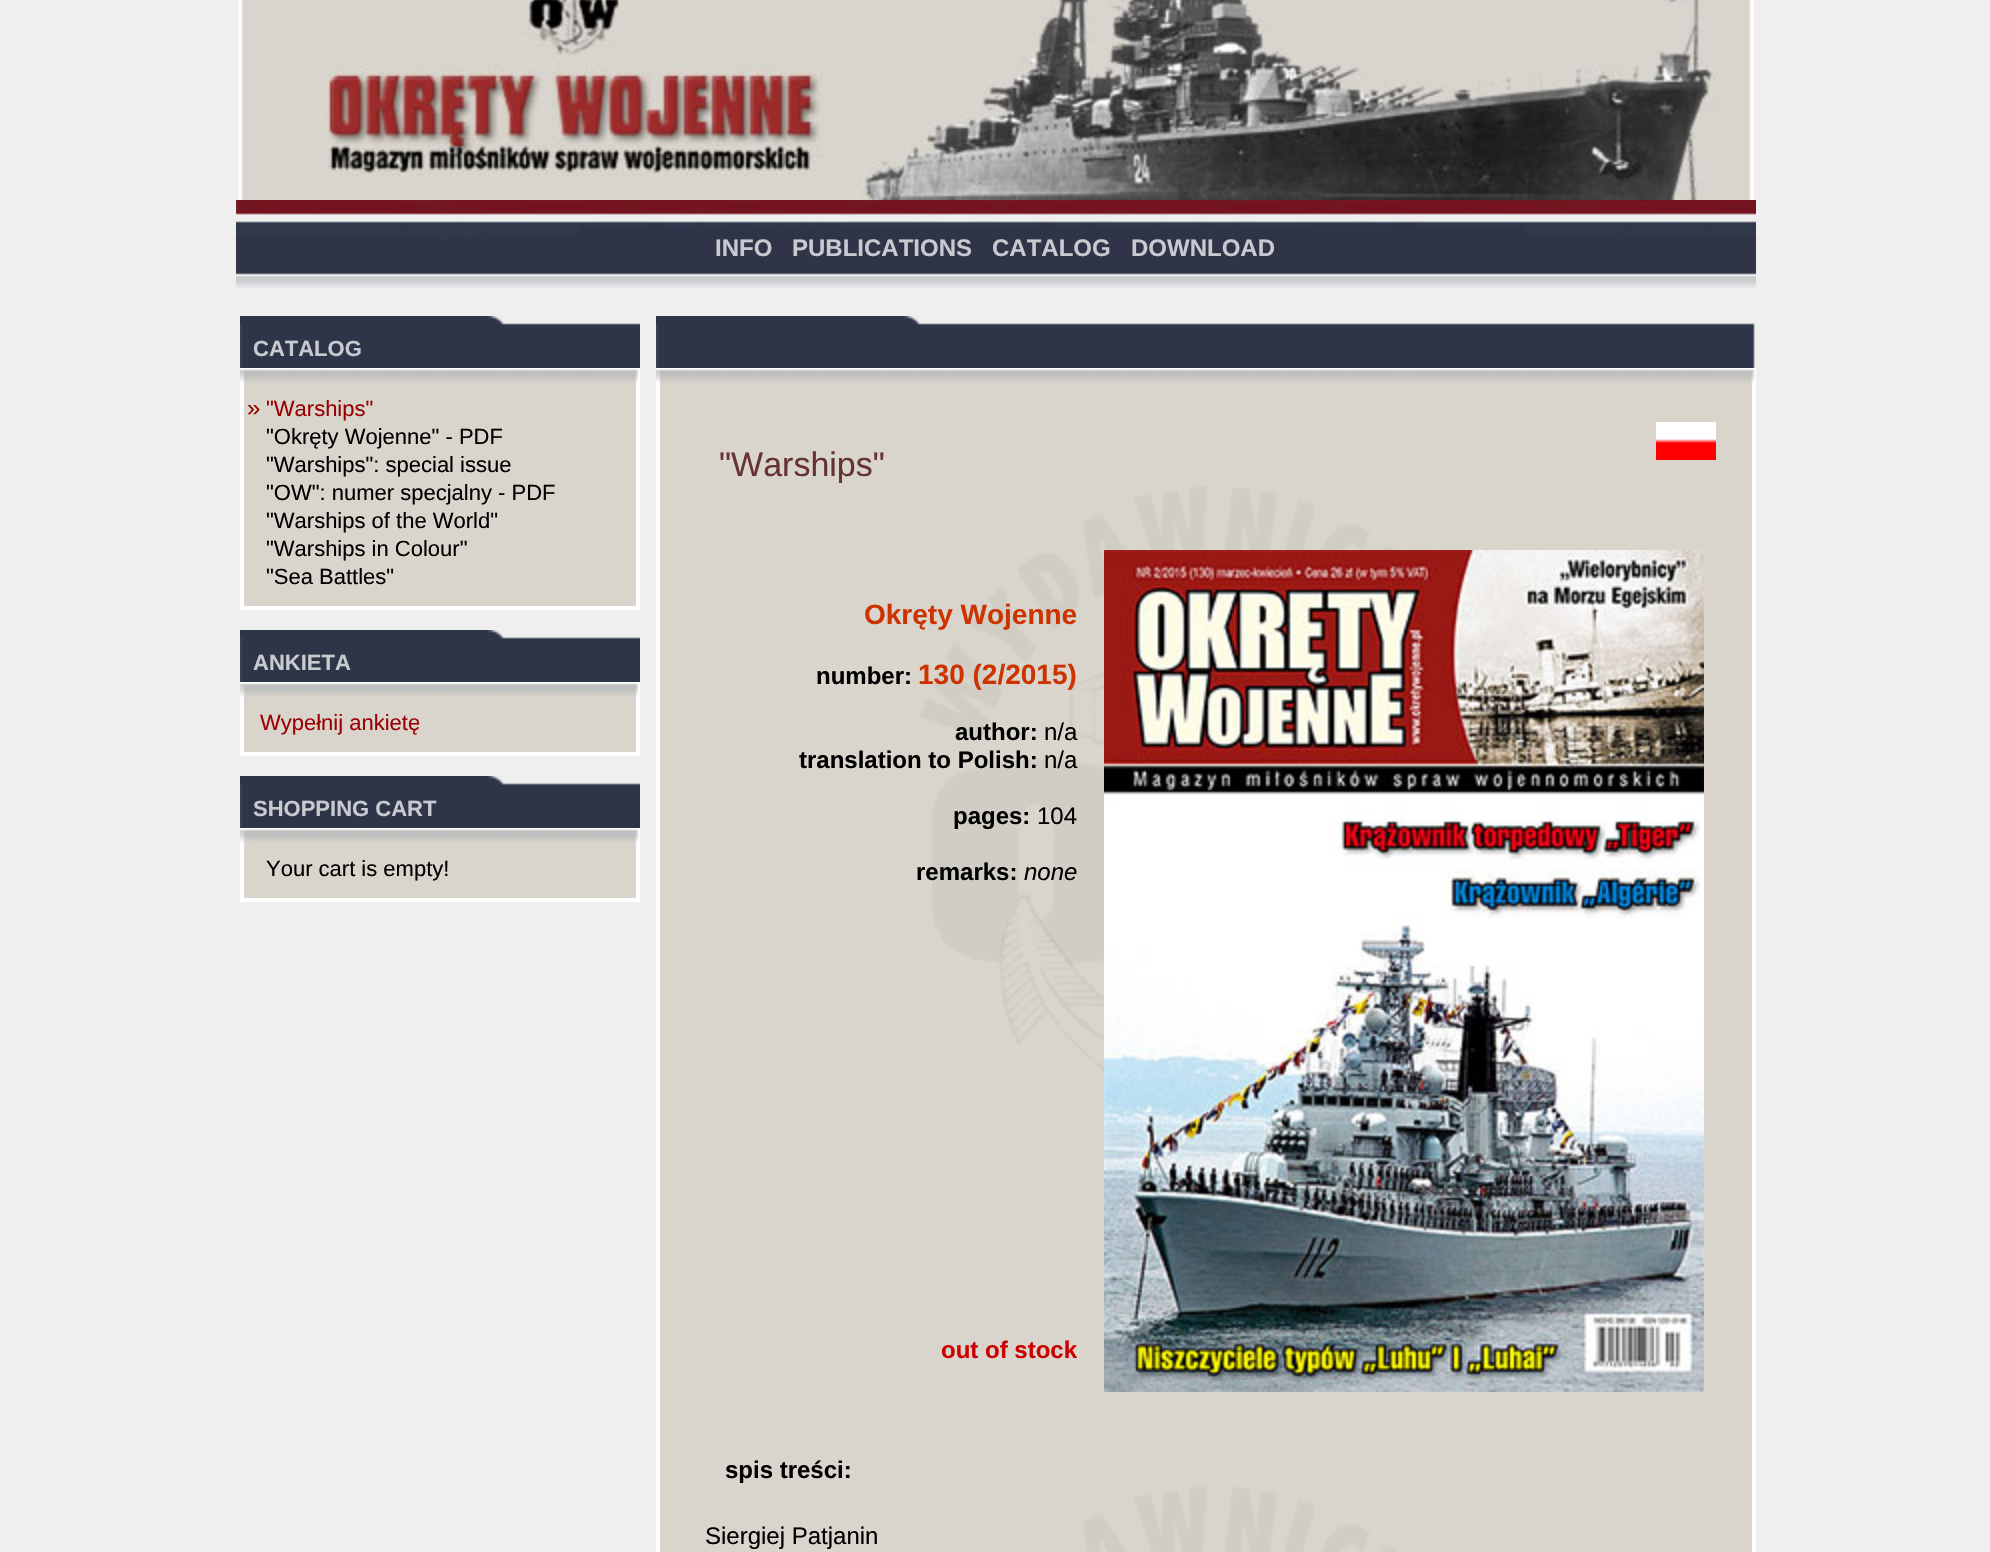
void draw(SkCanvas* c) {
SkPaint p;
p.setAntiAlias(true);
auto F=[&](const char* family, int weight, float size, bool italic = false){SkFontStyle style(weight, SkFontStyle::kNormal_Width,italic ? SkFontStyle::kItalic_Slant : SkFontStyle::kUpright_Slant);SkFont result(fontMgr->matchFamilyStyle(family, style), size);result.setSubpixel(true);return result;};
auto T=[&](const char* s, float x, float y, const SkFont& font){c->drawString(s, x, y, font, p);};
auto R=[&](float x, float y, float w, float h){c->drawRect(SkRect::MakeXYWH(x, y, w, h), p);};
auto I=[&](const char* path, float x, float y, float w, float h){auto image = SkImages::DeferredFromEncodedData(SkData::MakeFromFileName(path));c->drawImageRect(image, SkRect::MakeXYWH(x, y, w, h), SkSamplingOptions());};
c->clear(0xffefefef);
I("1.png",238,0,88,200);
I("2.png",326,0,1428,200);
I("3.png",236,200,1520,89);
auto f1 = F("Liberation Sans",700,24);
p.setColor(0xffc7cacf);
T("INFO",715,256,f1);
T("PUBLICATIONS",792,256,f1);
T("CATALOG",992,256,f1);
T("DOWNLOAD",1131,256,f1);
I("4.png",240,316,400,52);
auto f2 = F("Liberation Sans",700,22);
T("CATALOG",253,356,f2);
I("5.png",240,368,400,16);
p.setColor(0xffd9d5cc);
R(244,384,392,222);
p.setColor(0xffffffff);
R(636,384,4,226);
R(240,384,4,206);
auto f3 = F("Liberation Sans",400,24);
p.setColor(0xff990000);
T("»",247,416,f3);
auto f4 = F("Liberation Sans",400,22);
T("\"Warships\"",266,416,f4);
p.setColor(0xff000000);
T("\"Okręty Wojenne\" - PDF",266,444,f4);
T("\"Warships\": special issue",266,472,f4);
T("\"OW\": numer specjalny - PDF",266,500,f4);
T("\"Warships of the World\"",266,528,f4);
T("\"Warships in Colour\"",266,556,f4);
T("\"Sea Battles\"",266,584,f4);
p.setColor(0xffffffff);
R(240,606,400,4);
R(240,590,4,20);
I("4.png",240,630,400,52);
p.setColor(0xffc7cacf);
T("ANKIETA",253,670,f2);
I("5.png",240,682,400,16);
p.setColor(0xffd9d5cc);
R(244,698,392,54);
p.setColor(0xffffffff);
R(636,698,4,58);
R(240,698,4,38);
p.setColor(0xff990000);
T("Wypełnij ankietę",260,730,f4);
p.setColor(0xffffffff);
R(240,752,400,4);
R(240,736,4,20);
I("4.png",240,776,400,52);
p.setColor(0xffc7cacf);
T("SHOPPING CART",253,816,f2);
I("5.png",240,828,400,16);
p.setColor(0xffd9d5cc);
R(244,844,392,54);
p.setColor(0xffffffff);
R(636,844,4,58);
R(240,844,4,38);
p.setColor(0xff000000);
T("Your cart is empty!",266,876,f4);
p.setColor(0xffffffff);
R(240,898,400,4);
R(240,882,4,20);
p.setColor(0xffd9d5cc);
R(660,384,1092,1168);
I("6.png",919,486,480,1066);
I("7.png",656,316,1099,52);
I("8.png",656,368,1100,16);
p.setColor(0xffffffff);
R(1752,384,4,1168);
R(656,384,4,1168);
I("9.png",1656,422,60,38);
auto f5 = F("Liberation Sans",400,34);
p.setColor(0xff663333);
T("\"Warships\"",719,476,f5);
auto f6 = F("Liberation Sans",700,28);
p.setColor(0xffcc3300);
T("Okręty Wojenne",864,624,f6);
p.setColor(0xff000000);
T("number:",816,684,f1);
p.setColor(0xffcc3300);
T("130 (2/2015)",918,684,f6);
p.setColor(0xff000000);
T("author:",955,740,f1);
T("n/a",1044,740,f3);
T("translation to Polish:",799,768,f1);
T("n/a",1044,768,f3);
T("pages:",953,824,f1);
T("104",1037,824,f3);
T("remarks:",916,880,f1);
auto f7 = F("Liberation Sans",400,24,true);
T("none",1024,880,f7);
I("10.png",1104,550,600,842);
p.setColor(0xffcc0000);
T("out of stock",941,1358,f1);
p.setColor(0xff000000);
T("spis treści:",725,1478,f1);
T("Siergiej Patjanin",705,1544,f3);
}
